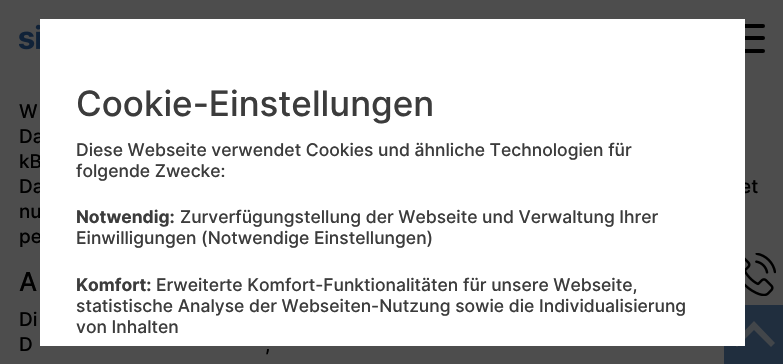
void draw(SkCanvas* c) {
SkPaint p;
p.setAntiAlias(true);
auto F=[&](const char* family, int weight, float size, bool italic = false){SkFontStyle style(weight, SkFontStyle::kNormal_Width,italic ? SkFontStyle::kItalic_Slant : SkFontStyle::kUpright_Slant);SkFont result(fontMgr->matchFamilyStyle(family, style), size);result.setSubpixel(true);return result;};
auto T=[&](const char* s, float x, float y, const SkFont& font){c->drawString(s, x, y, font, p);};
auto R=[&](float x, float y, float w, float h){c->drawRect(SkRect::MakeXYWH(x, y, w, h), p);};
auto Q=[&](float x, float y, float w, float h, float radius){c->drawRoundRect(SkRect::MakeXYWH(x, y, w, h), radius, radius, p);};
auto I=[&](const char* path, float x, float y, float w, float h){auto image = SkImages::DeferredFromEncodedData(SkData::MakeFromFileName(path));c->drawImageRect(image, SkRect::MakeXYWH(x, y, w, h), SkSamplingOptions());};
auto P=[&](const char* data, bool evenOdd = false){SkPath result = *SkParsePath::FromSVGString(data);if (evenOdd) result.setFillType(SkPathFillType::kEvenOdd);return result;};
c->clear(0xff4d4d4d);
I("1.png",19,24,21,26);
p.setColor(0xff000000);
Q(715,36,50,4,2);
Q(715,24,50,4,2);
Q(715,49,50,4,2);
auto f1 = F("Inter",500,19);
T("Da",19,143,f1);
T("kB",19,168,f1);
T("Da",19,193,f1);
T("et",740,193,f1);
T("nu",19,218,f1);
T("pe",19,243,f1);
p.setColor(0xbf102338);
R(724,305,59,59);
p.setColor(0xbf4d4d4d);
c->drawPath(P("M775 343l-4 4l-17-17l-17 17l-4-4l21-22z"),p);
p.setColor(0xffffffff);
R(40,19,705,327);
auto f2 = F("Inter",500,35);
p.setColor(0xff3c3c3c);
T("Cookie-Einstellungen",76,116,f2);
auto f3 = F("Inter",500,17.5);
T("Diese Webseite verwendet Cookies und ähnliche Technologien für",76,156,f3);
T("folgende Zwecke:",76,177,f3);
auto f4 = F("Inter",700,17.5);
T("Notwendig:",76,223,f4);
T("Zurverfügungstellung der Webseite und Verwaltung Ihrer",180,223,f3);
T("Einwilligungen (Notwendige Einstellungen)",76,244,f3);
T("Komfort:",76,291,f4);
T("Erweiterte Komfort-Funktionalitäten für unsere Webseite,",156,291,f3);
T("statistische Analyse der Webseiten-Nutzung sowie die Individualisierung",76,312,f3);
T("von Inhalten",76,333,f3);
p.setColor(0xff000000);
T("W",19,118,f1);
auto f5 = F("Inter",500,26);
T("A",19,291,f5);
T("Di",19,326,f1);
T("D",19,351,f1);
T(",",265,351,f1);
I("2.png",745,253,31,43);
}
